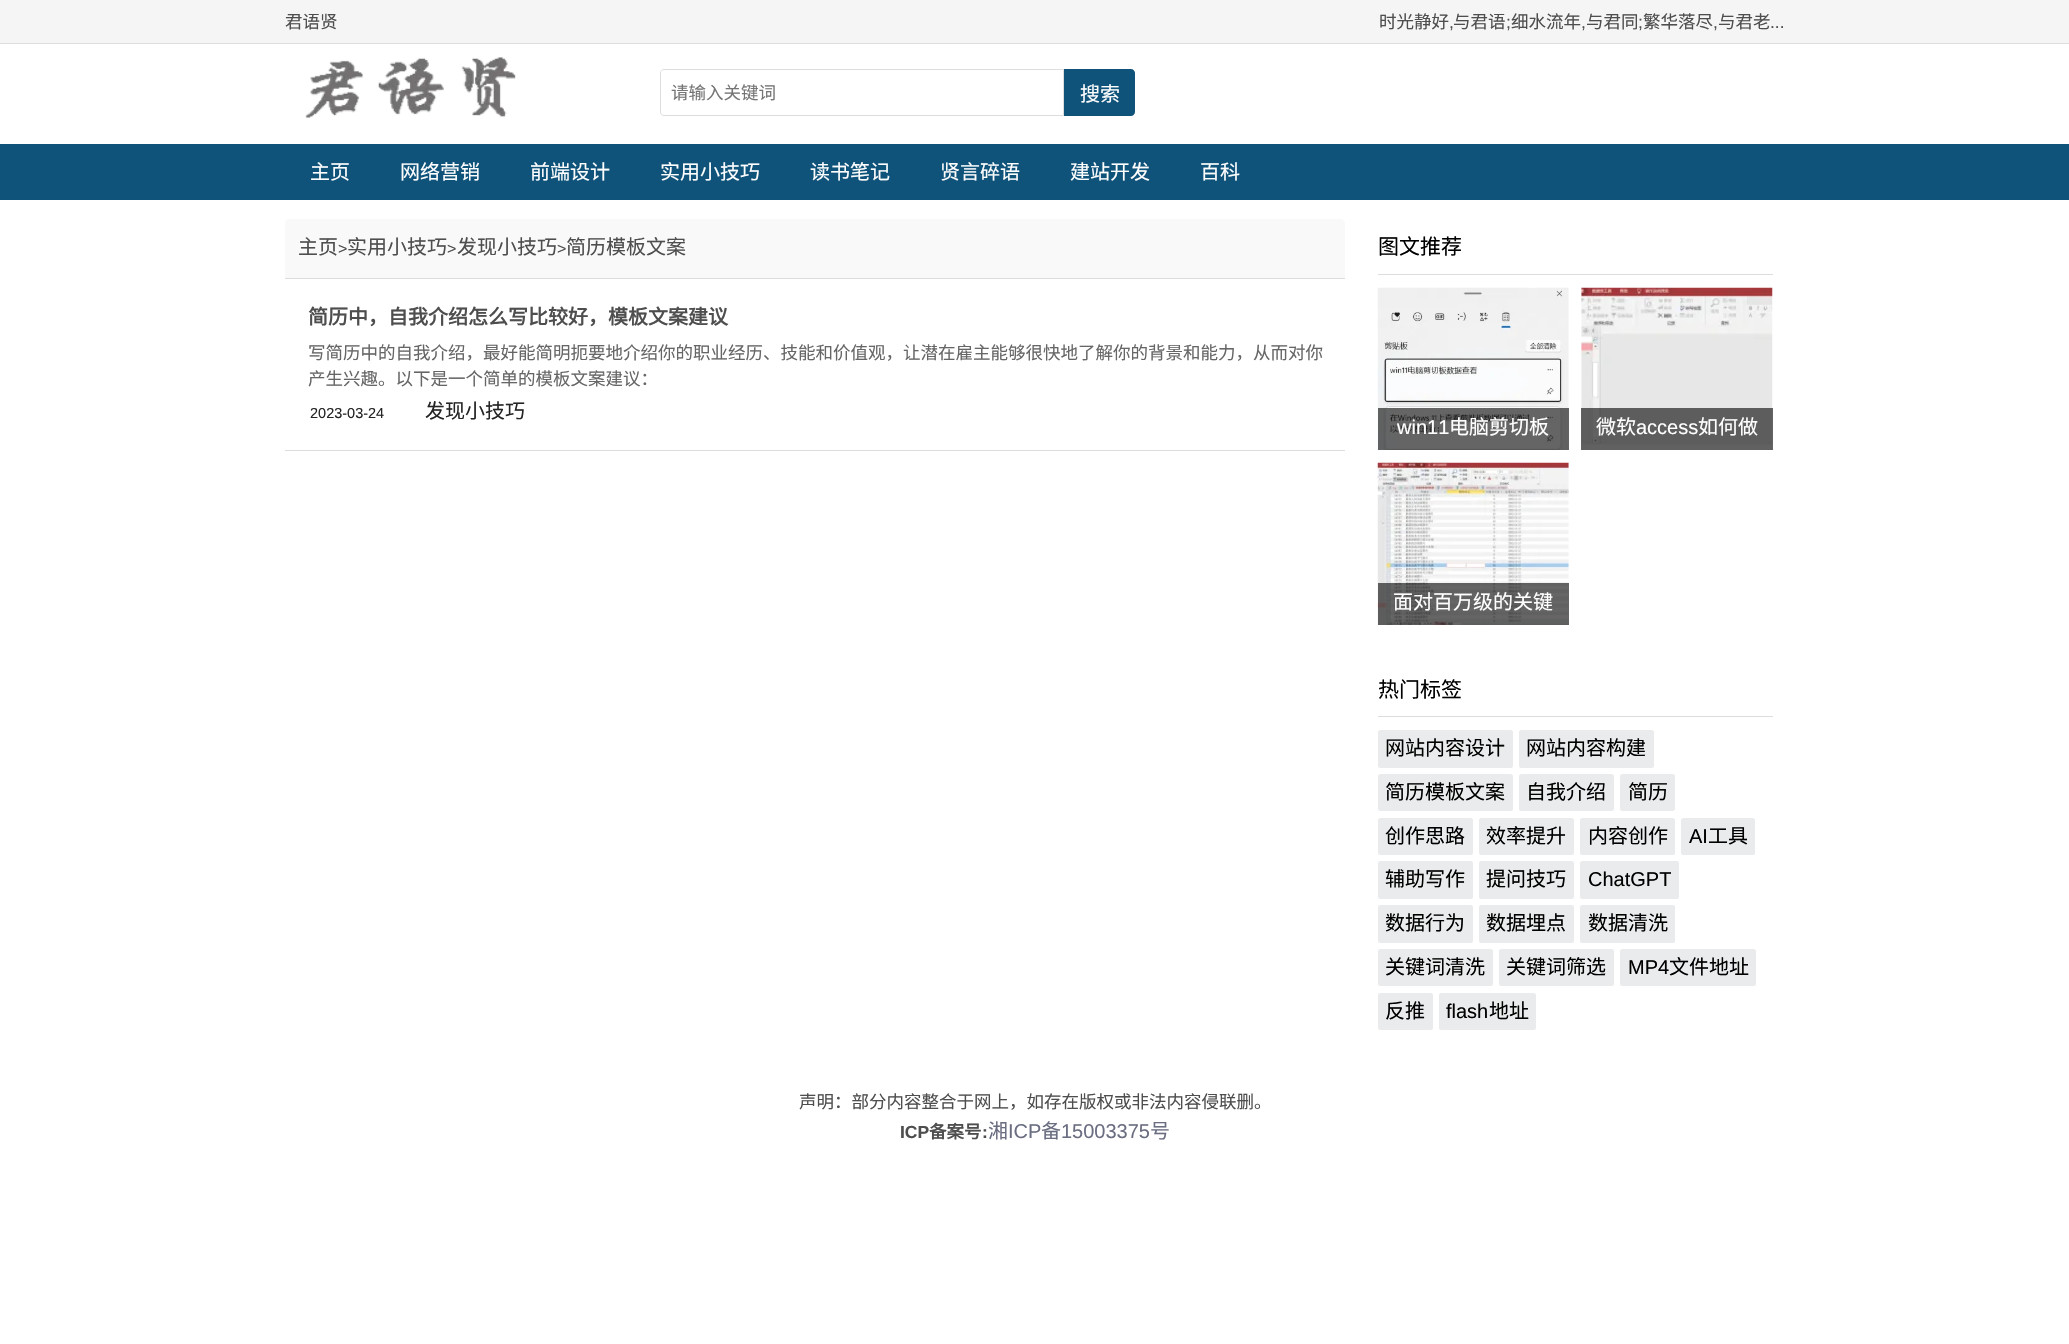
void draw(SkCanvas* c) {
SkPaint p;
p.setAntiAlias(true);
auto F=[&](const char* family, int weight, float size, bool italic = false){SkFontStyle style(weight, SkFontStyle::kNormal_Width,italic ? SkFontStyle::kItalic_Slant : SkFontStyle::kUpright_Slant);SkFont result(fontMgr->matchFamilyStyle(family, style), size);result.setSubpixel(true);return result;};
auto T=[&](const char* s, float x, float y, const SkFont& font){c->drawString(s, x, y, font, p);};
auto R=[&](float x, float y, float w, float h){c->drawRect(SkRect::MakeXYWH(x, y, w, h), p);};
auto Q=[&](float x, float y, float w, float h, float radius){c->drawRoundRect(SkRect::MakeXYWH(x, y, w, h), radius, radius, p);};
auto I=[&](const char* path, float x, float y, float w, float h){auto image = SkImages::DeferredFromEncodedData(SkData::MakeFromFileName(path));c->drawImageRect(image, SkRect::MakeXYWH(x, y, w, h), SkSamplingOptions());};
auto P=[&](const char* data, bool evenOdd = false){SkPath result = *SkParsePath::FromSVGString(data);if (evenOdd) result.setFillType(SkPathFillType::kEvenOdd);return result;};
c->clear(0xffffffff);
p.setColor(0xfff5f5f5);
R(0,0,2069,43);
p.setColor(0xffdddddd);
R(0,43,2069,1);
auto f1 = F("Noto Sans CJK SC",400,17.5);
p.setColor(0xff4e4e4e);
T("君语贤",285,28,f1);
T("时光静好",1379,28,f1);
auto f2 = F("Liberation Sans",400,17.5);
T(",",1449,28,f2);
T("与君语",1453,28,f1);
T(";",1506,28,f2);
T("细水流年",1511,28,f1);
T(",",1581,28,f2);
T("与君同",1586,28,f1);
T(";",1638,28,f2);
T("繁华落尽",1643,28,f1);
T(",",1713,28,f2);
T("与君老",1718,28,f1);
T("...",1770,28,f2);
I("1.png",305,57,211,61);
p.setStroke(true);
p.setStrokeWidth(1);
p.setColor(0xffdddddd);
c->drawPath(P("M664 69.5h399.5v46h-399.5c-2 0-3.5-1.5-3.5-3.5v-39c0-2 1.5-3.5 3.5-3.5z"),p);
p.setStroke(false);
p.setColor(0xff757575);
T("请输入关键词",671,99,f1);
p.setColor(0xff10537a);
c->drawPath(P("M1064 69h67c2 0 4 2 4 4v39c0 2-2 4-4 4h-67z"),p);
auto f3 = F("Noto Sans CJK SC",400,20);
p.setColor(0xffffffff);
T("搜索",1080,101,f3);
p.setColor(0xff10537a);
R(0,144,2069,56);
p.setColor(0xffffffff);
T("主页",310,179,f3);
T("网络营销",400,179,f3);
T("前端设计",530,179,f3);
T("实用小技巧",660,179,f3);
T("读书笔记",810,179,f3);
T("贤言碎语",940,179,f3);
T("建站开发",1070,179,f3);
T("百科",1200,179,f3);
p.setColor(0xfff9f9f9);
c->drawPath(P("M290 219h1050c3 0 5 2 5 5v55h-1060v-55c0-3 2-5 5-5z"),p);
p.setColor(0xffdddddd);
R(285,278,1060,1);
p.setColor(0xff4e4e4e);
T("主页",298,254,f3);
auto f4 = F("Liberation Sans",400,16);
T(">",338,254,f4);
T("实用小技巧",347,254,f3);
T(">",447,254,f4);
T("发现小技巧",457,254,f3);
T(">",557,254,f4);
T("简历模板文案",566,254,f3);
p.setColor(0xffdddddd);
R(285,450,1060,1);
auto f5 = F("Noto Sans CJK SC",700,20);
p.setColor(0xff4e4e4e);
T("简历中，自我介绍怎么写比较好，模板文案建议",308,324,f5);
p.setColor(0xff666666);
T("写简历中的自我介绍，最好能简明扼要地介绍你的职业经历、技能和价值观，让潜在雇主能够很快地了解你的背景和能力，从而对你",308,359,f1);
T("产生兴趣。以下是一个简单的模板文案建议：",308,385,f1);
auto f6 = F("Liberation Sans",400,14.5);
p.setColor(0xff242424);
T("2023-03-24",310,418,f6);
T("发现小技巧",425,418,f3);
p.setColor(0xffdddddd);
R(1378,274,395,1);
auto f7 = F("Noto Sans CJK SC",400,21);
p.setColor(0xff000000);
T("图文推荐",1378,254,f7);
I("2.png",1377,287,192,163);
p.setColor(0x99000000);
R(1378,408,191,42);
auto f8 = F("Liberation Sans",400,20);
p.setColor(0xffffffff);
T("win11",1397,434,f8);
T("电脑剪切板",1449,434,f3);
I("3.png",1581,287,192,163);
p.setColor(0x99000000);
R(1581,408,192,42);
p.setColor(0xffffffff);
T("微软",1596,434,f3);
T("access",1636,434,f8);
T("如何做",1698,434,f3);
I("4.png",1377,462,192,163);
p.setColor(0x99000000);
R(1378,583,191,42);
p.setColor(0xffffffff);
T("面对百万级的关键",1393,609,f3);
p.setColor(0xffdddddd);
R(1378,716,395,1);
p.setColor(0xff000000);
T("热门标签",1378,697,f7);
p.setColor(0xffeaebec);
Q(1378,730,135,38,2.5);
p.setColor(0xff000000);
T("网站内容设计",1385,755,f3);
p.setColor(0xffeaebec);
Q(1519,730,135,38,2.5);
p.setColor(0xff000000);
T("网站内容构建",1526,755,f3);
p.setColor(0xffeaebec);
Q(1378,774,135,37,2.5);
p.setColor(0xff000000);
T("简历模板文案",1385,799,f3);
p.setColor(0xffeaebec);
Q(1519,774,95,37,2.5);
p.setColor(0xff000000);
T("自我介绍",1526,799,f3);
p.setColor(0xffeaebec);
Q(1620,774,55,37,2.5);
p.setColor(0xff000000);
T("简历",1628,799,f3);
p.setColor(0xffeaebec);
Q(1378,818,95,37,2.5);
p.setColor(0xff000000);
T("创作思路",1385,843,f3);
p.setColor(0xffeaebec);
Q(1479,818,95,37,2.5);
p.setColor(0xff000000);
T("效率提升",1486,843,f3);
p.setColor(0xffeaebec);
Q(1580,818,95,37,2.5);
p.setColor(0xff000000);
T("内容创作",1588,843,f3);
p.setColor(0xffeaebec);
Q(1681,818,74,37,2.5);
p.setColor(0xff000000);
T("AI",1689,843,f8);
T("工具",1708,843,f3);
p.setColor(0xffeaebec);
Q(1378,861,95,38,2.5);
p.setColor(0xff000000);
T("辅助写作",1385,886,f3);
p.setColor(0xffeaebec);
Q(1479,861,95,38,2.5);
p.setColor(0xff000000);
T("提问技巧",1486,886,f3);
p.setColor(0xffeaebec);
Q(1580,861,99,38,2.5);
p.setColor(0xff000000);
T("ChatGPT",1588,886,f8);
p.setColor(0xffeaebec);
Q(1378,905,95,38,2.5);
p.setColor(0xff000000);
T("数据行为",1385,930,f3);
p.setColor(0xffeaebec);
Q(1479,905,95,38,2.5);
p.setColor(0xff000000);
T("数据埋点",1486,930,f3);
p.setColor(0xffeaebec);
Q(1580,905,95,38,2.5);
p.setColor(0xff000000);
T("数据清洗",1588,930,f3);
p.setColor(0xffeaebec);
Q(1378,949,115,37,2.5);
p.setColor(0xff000000);
T("关键词清洗",1385,974,f3);
p.setColor(0xffeaebec);
Q(1499,949,115,37,2.5);
p.setColor(0xff000000);
T("关键词筛选",1506,974,f3);
p.setColor(0xffeaebec);
Q(1620,949,136,37,2.5);
p.setColor(0xff000000);
T("MP4",1628,974,f8);
T("文件地址",1669,974,f3);
p.setColor(0xffeaebec);
Q(1378,993,55,37,2.5);
p.setColor(0xff000000);
T("反推",1385,1018,f3);
p.setColor(0xffeaebec);
Q(1439,993,97,37,2.5);
p.setColor(0xff000000);
T("flash",1446,1018,f8);
T("地址",1489,1018,f3);
p.setColor(0xff4e4e4e);
T("声明：部分内容整合于网上，如存在版权或非法内容侵联删。",799,1108,f1);
auto f9 = F("Liberation Sans",700,17.5);
T("ICP",900,1138,f9);
auto f10 = F("Noto Sans CJK SC",700,17.5);
T("备案号",929,1138,f10);
T(":",982,1138,f9);
p.setColor(0xff6b6e81);
T("湘",988,1138,f3);
T("ICP",1008,1138,f8);
T("备",1041,1138,f3);
T("15003375",1061,1138,f8);
T("号",1150,1138,f3);
}
